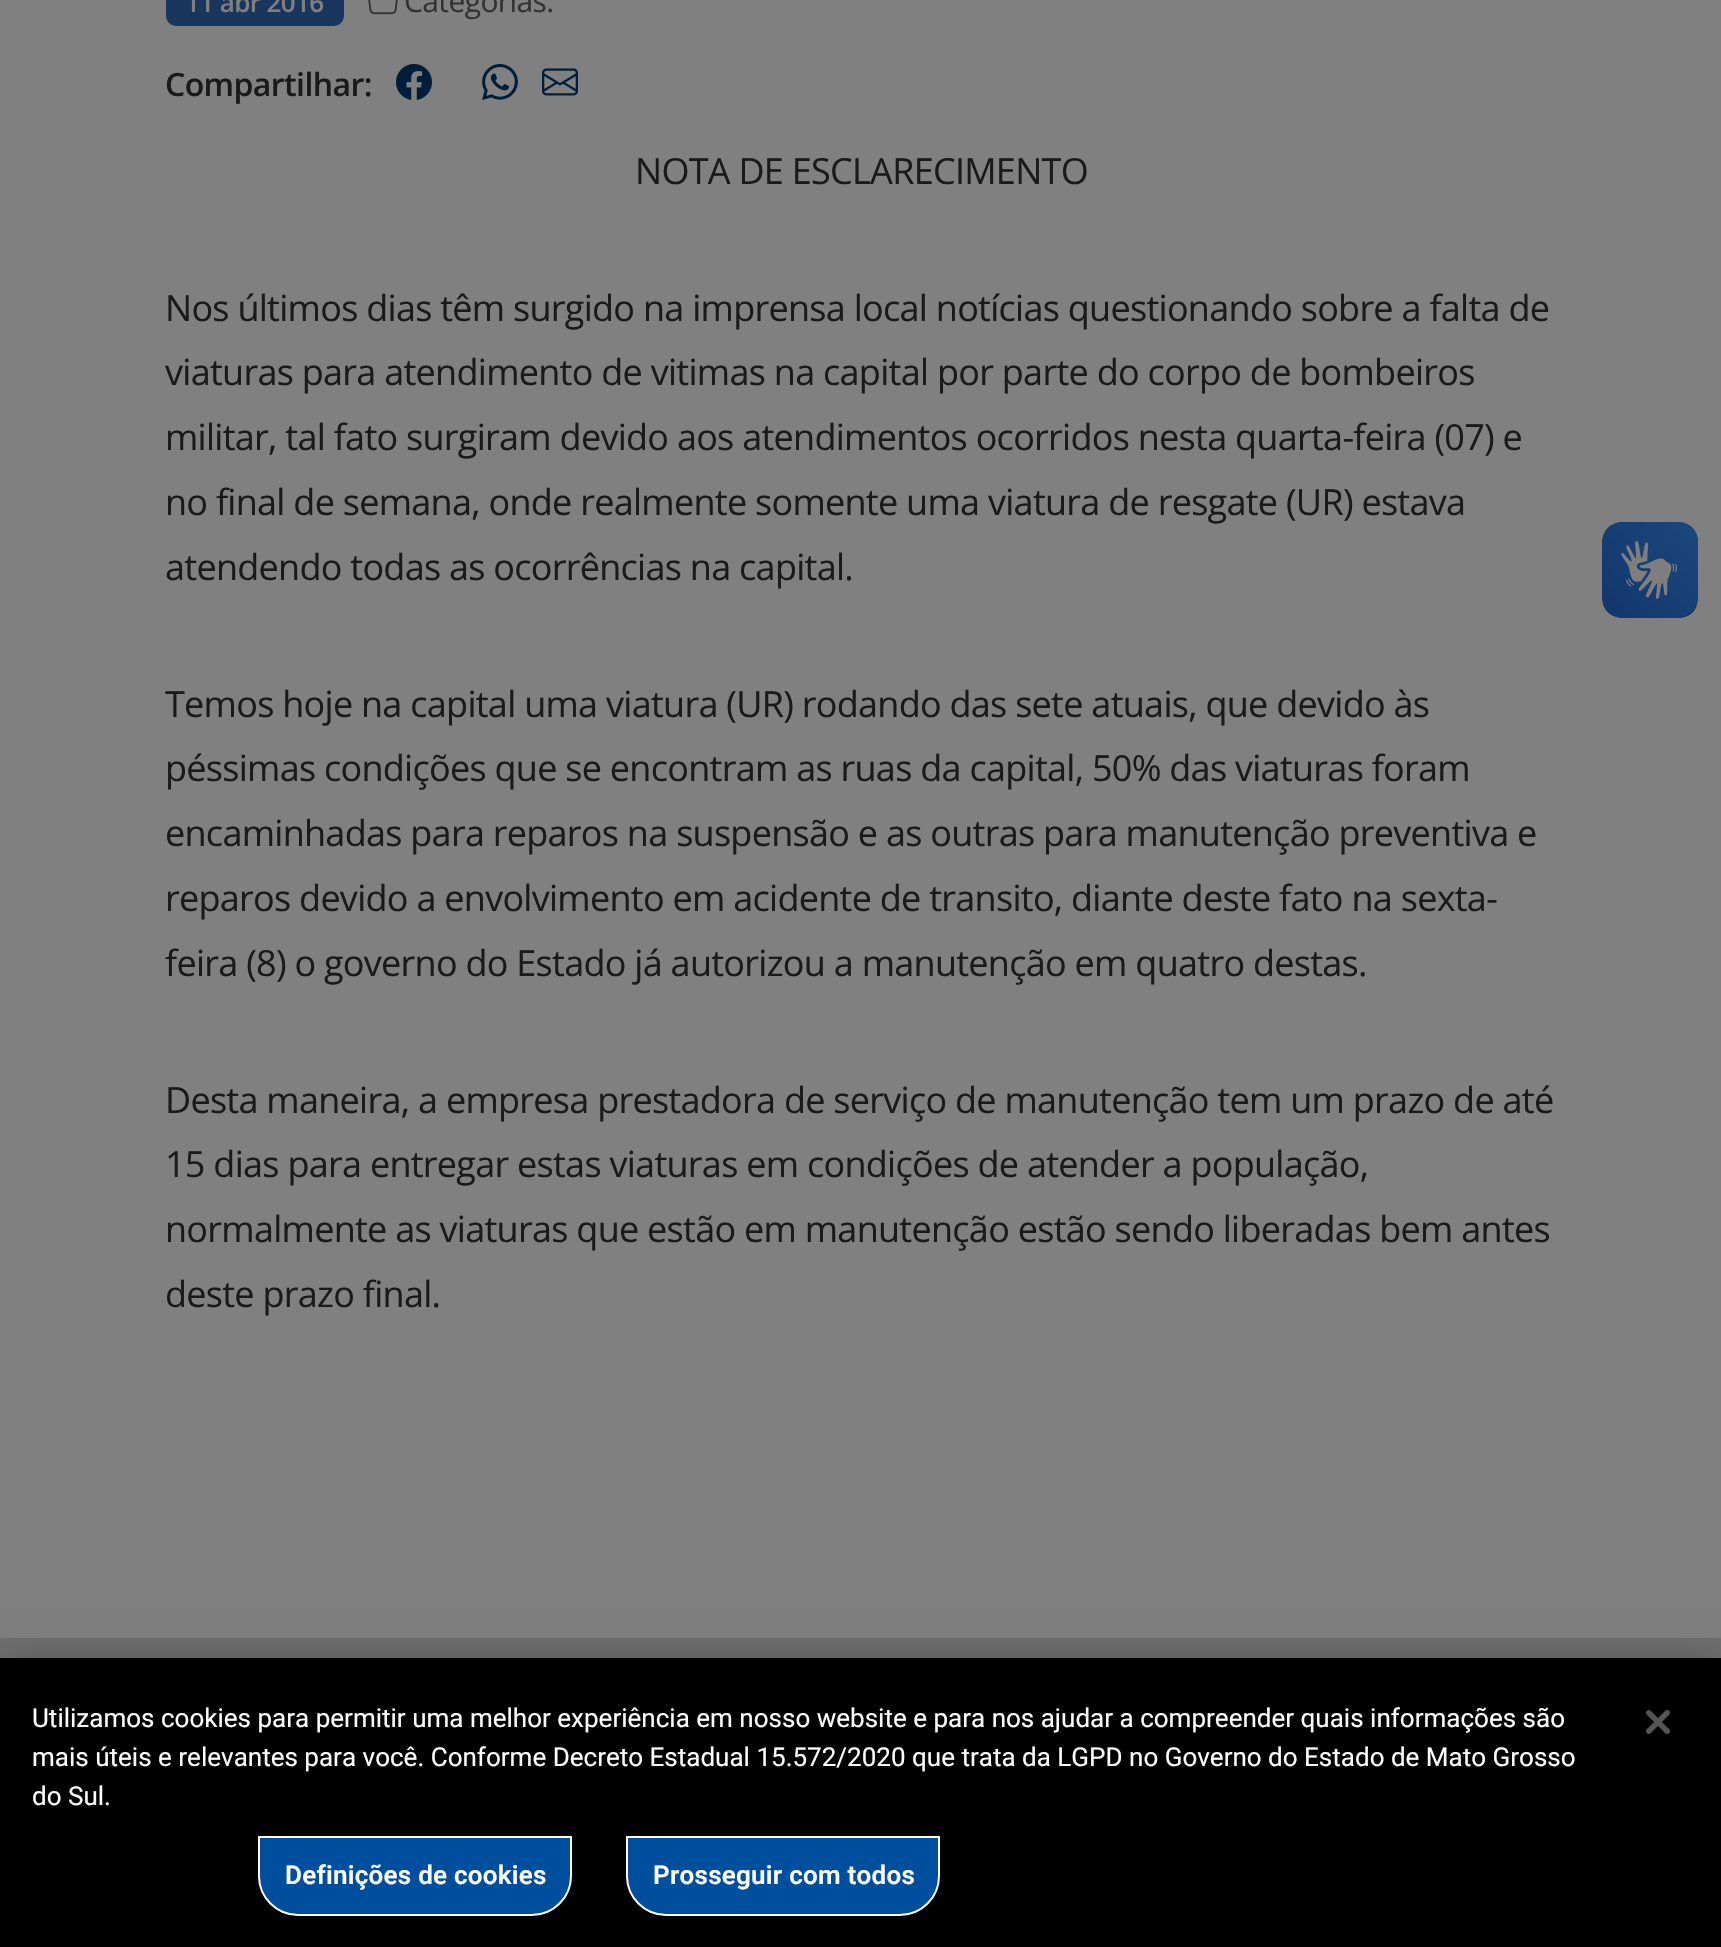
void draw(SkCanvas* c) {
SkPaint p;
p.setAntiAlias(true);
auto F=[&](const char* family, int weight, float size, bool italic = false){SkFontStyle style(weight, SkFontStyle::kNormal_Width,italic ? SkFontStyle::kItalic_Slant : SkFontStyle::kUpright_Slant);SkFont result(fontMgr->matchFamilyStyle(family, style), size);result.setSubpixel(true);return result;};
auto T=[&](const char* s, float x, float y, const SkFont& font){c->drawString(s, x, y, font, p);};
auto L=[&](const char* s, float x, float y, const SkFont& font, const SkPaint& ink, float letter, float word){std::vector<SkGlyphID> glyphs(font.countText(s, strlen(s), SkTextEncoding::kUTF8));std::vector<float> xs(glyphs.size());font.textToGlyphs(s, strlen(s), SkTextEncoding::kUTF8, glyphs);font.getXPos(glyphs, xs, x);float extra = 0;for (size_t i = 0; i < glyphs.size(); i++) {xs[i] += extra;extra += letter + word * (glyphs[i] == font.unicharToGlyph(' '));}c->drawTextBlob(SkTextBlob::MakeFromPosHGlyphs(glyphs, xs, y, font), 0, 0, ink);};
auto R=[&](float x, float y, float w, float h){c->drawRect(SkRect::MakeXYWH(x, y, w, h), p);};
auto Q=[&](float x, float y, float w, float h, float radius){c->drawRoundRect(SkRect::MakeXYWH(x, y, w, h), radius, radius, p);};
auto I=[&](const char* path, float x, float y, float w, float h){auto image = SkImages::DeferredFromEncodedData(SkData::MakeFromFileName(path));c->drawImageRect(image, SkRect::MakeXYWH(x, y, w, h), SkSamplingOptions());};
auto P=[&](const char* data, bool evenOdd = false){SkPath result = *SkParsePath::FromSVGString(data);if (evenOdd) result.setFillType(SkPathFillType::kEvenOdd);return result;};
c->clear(0xff808080);
p.setColor(0xff19365f);
Q(166,-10,178,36,10);
auto f1 = F("Open Sans",600,26);
p.setColor(0xff808080);
L("11 abr 2016",185,12,f1,p,-.6,0);
I("1.png",368,0,30,15);
auto f2 = F("Open Sans",400,30);
p.setColor(0xff323232);
L("Categorias:",404,12,f2,p,-.6,0);
auto f3 = F("Open Sans",600,32);
p.setColor(0xff1a1a1a);
L("Compartilhar:",165,96,f3,p,-.6,0);
I("2.png",396,64,36,36);
I("3.png",482,64,36,36);
I("4.png",542,68,36,28);
auto f4 = F("Open Sans",400,36);
L("NOTA DE ESCLARECIMENTO",635,184,f4,p,-.72,0);
L("Nos últimos dias têm surgido na imprensa local notícias questionando sobre a falta de",165,321,f4,p,-.72,0);
L("viaturas para atendimento de vitimas na capital por parte do corpo de bombeiros",165,385,f4,p,-.72,0);
L("militar, tal fato surgiram devido aos atendimentos ocorridos nesta quarta-feira (07) e",165,450,f4,p,-.72,0);
L("no final de semana, onde realmente somente uma viatura de resgate (UR) estava",165,515,f4,p,-.72,0);
L("atendendo todas as ocorrências na capital.",165,580,f4,p,-.72,0);
L("Temos hoje na capital uma viatura (UR) rodando das sete atuais, que devido às",165,717,f4,p,-.72,0);
L("péssimas condições que se encontram as ruas da capital, 50% das viaturas foram",165,781,f4,p,-.72,0);
L("encaminhadas para reparos na suspensão e as outras para manutenção preventiva e",165,846,f4,p,-.72,0);
L("reparos devido a envolvimento em acidente de transito, diante deste fato na sexta-",165,911,f4,p,-.72,0);
L("feira (8) o governo do Estado já autorizou a manutenção em quatro destas.",165,976,f4,p,-.72,0);
L("Desta maneira, a empresa prestadora de serviço de manutenção tem um prazo de até",165,1113,f4,p,-.72,0);
L("15 dias para entregar estas viaturas em condições de atender a população,",165,1177,f4,p,-.72,0);
L("normalmente as viaturas que estão em manutenção estão sendo liberadas bem antes",165,1242,f4,p,-.72,0);
L("deste prazo final.",165,1307,f4,p,-.72,0);
I("5.png",1602,522,96,96);
I("6.png",1602,522,96,96);
p.setColor(0xff6f6f6f);
R(0,1638,1721,20);
p.setColor(0x33000000);
p.setMaskFilter(SkMaskFilter::MakeBlur(kNormal_SkBlurStyle, 18));
c->drawRect(SkRect::MakeXYWH(0,1658,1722,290),p);
p.setMaskFilter(nullptr);
p.setColor(0xff000000);
R(0,1658,1721,289);
auto f5 = F("Roboto",400,26.02);
p.setColor(0xffffffff);
T("Utilizamos cookies para permitir uma melhor experiência em nosso website e para nos ajudar a compreender quais informações são",32,1727,f5);
T("mais úteis e relevantes para você. Conforme Decreto Estadual 15.572/2020 que trata da LGPD no Governo do Estado de Mato Grosso",32,1766,f5);
T("do Sul.",32,1805,f5);
p.setColor(0xff004f9f);
c->drawPath(P("M259 1837h312v39c0 21.5-17.5 39-39 39h-234c-21.5 0-39-17.5-39-39z"),p);
p.setStroke(true);
p.setStrokeWidth(2);
p.setColor(0xffffffff);
c->drawPath(P("M259 1837h312v39c0 21.5-17.5 39-39 39h-234c-21.5 0-39-17.5-39-39z"),p);
auto f6 = F("Roboto",600,26.02);
p.setStroke(false);
L("Definições de cookies",285,1884,f6,p,.25,0);
p.setColor(0xff004f9f);
c->drawPath(P("M627 1837h312v39c0 21.5-17.5 39-39 39h-234c-21.5 0-39-17.5-39-39z"),p);
p.setStroke(true);
p.setColor(0xffffffff);
c->drawPath(P("M627 1837h312v39c0 21.5-17.5 39-39 39h-234c-21.5 0-39-17.5-39-39z"),p);
p.setStroke(false);
L("Prosseguir com todos",653,1884,f6,p,.25,0);
I("7.png",1646,1710,24,24);
}
